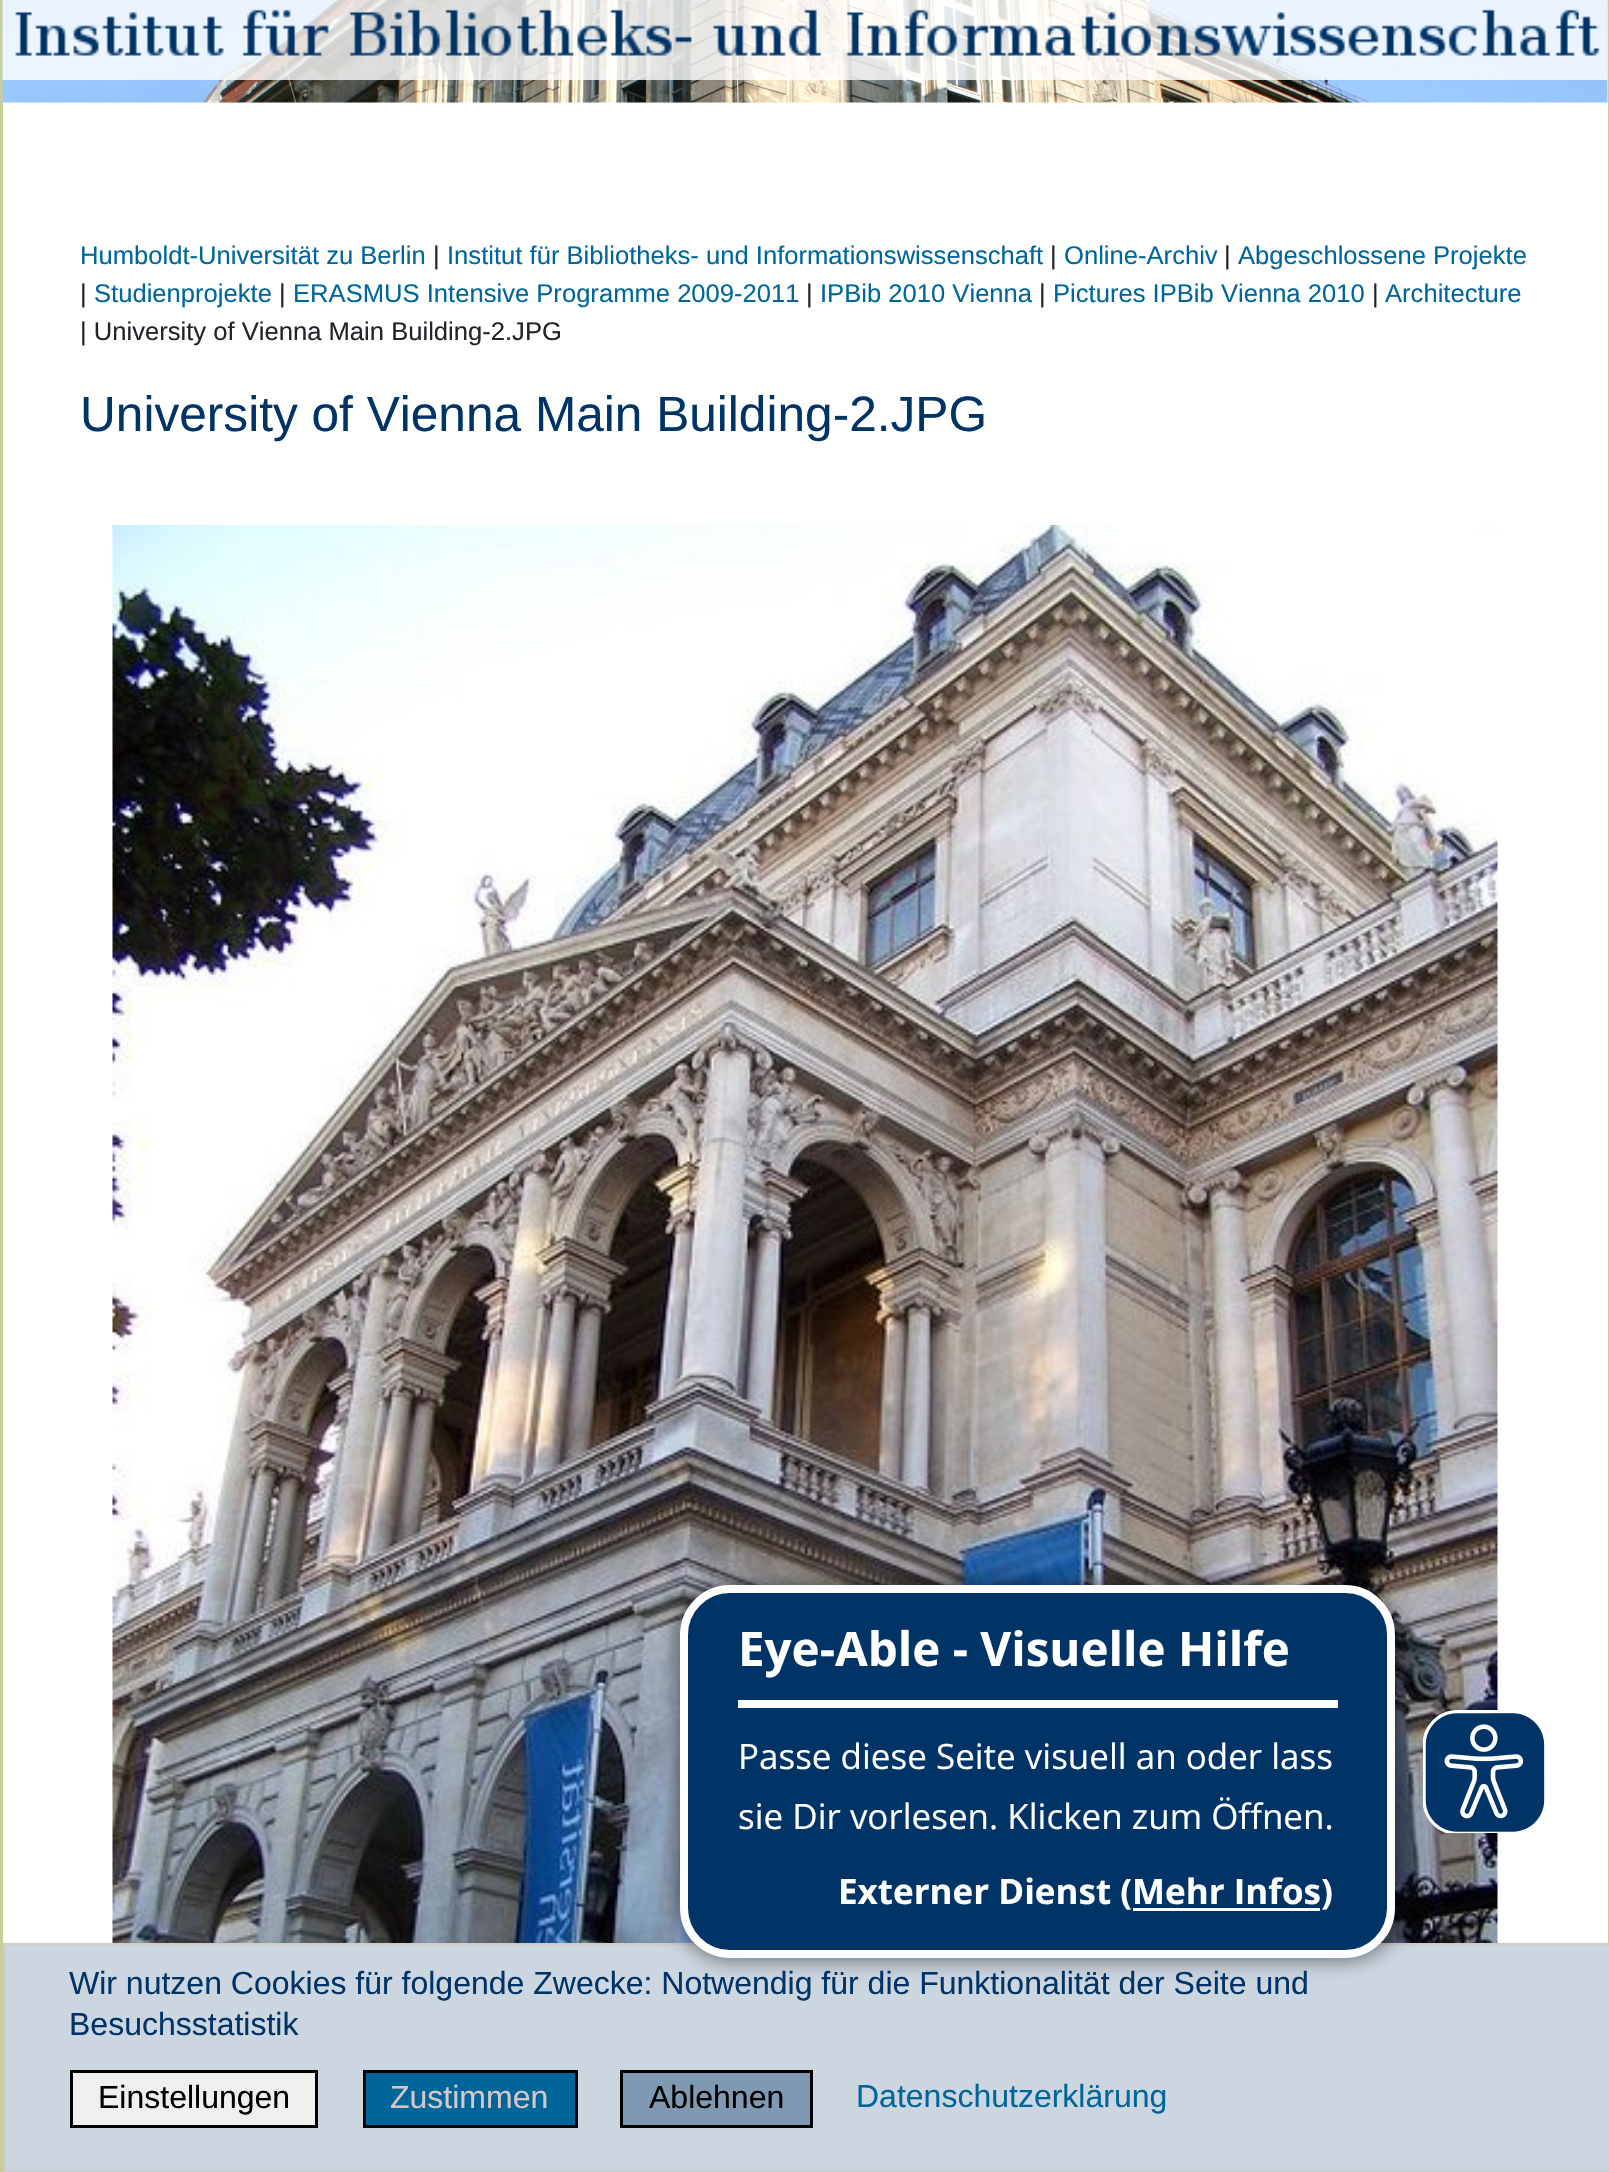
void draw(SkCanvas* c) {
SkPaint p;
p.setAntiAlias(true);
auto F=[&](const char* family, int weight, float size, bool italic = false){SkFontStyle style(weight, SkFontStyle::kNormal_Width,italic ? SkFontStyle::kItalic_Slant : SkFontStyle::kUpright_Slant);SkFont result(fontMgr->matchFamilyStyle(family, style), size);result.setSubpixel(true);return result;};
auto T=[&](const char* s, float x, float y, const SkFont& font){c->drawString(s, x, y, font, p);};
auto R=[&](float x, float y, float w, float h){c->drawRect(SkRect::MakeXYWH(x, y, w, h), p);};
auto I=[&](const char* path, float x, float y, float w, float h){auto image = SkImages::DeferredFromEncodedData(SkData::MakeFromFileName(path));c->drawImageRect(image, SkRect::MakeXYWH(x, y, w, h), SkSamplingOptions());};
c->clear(0xffffffff);
p.setColor(0xffcccc99);
R(0,0,3,2172);
I("1.png",2,0,1606,103);
I("2.png",2,0,1606,80);
R(1608,0,1,1943);
auto f1 = F("Liberation Sans",400,25.6);
p.setColor(0xff006699);
T("Humboldt-Universität zu Berlin",80,264,f1);
p.setColor(0xff212529);
T("|",433,264,f1);
p.setColor(0xff006699);
T("Institut für Bibliotheks- und Informationswissenschaft",447,264,f1);
p.setColor(0xff212529);
T("|",1050,264,f1);
p.setColor(0xff006699);
T("Online-Archiv",1064,264,f1);
p.setColor(0xff212529);
T("|",1224,264,f1);
p.setColor(0xff006699);
T("Abgeschlossene Projekte",1238,264,f1);
p.setColor(0xff212529);
T("|",80,302,f1);
p.setColor(0xff006699);
T("Studienprojekte",94,302,f1);
p.setColor(0xff212529);
T("|",279,302,f1);
p.setColor(0xff006699);
T("ERASMUS Intensive Programme 2009-2011",293,302,f1);
p.setColor(0xff212529);
T("|",806,302,f1);
p.setColor(0xff006699);
T("IPBib 2010 Vienna",820,302,f1);
p.setColor(0xff212529);
T("|",1039,302,f1);
p.setColor(0xff006699);
T("Pictures IPBib Vienna 2010",1053,302,f1);
p.setColor(0xff212529);
T("|",1372,302,f1);
p.setColor(0xff006699);
T("Architecture",1385,302,f1);
p.setColor(0xff212529);
T("| University of Vienna Main Building-2.JPG",80,340,f1);
auto f2 = F("Liberation Sans",400,49.6);
p.setColor(0xff003366);
T("University of Vienna Main Building-2.JPG",80,431,f2);
I("3.png",112,525,1386,1418);
p.setColor(0xffccd6e0);
c->drawRect(SkRect::MakeXYWH(4.5,1944.5,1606,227),p);
p.setStroke(true);
p.setStrokeWidth(3);
p.setColor(0xffcccccc);
c->drawRect(SkRect::MakeXYWH(4.5,1944.5,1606,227),p);
p.setStroke(false);
p.setColor(0x80000000);
p.setMaskFilter(SkMaskFilter::MakeBlur(kNormal_SkBlurStyle, 10));
c->drawRoundRect(SkRect::MakeXYWH(678,1583,720,377),53,53,p);
p.setMaskFilter(nullptr);
p.setColor(0xff003366);
c->drawRoundRect(SkRect::MakeXYWH(684,1589,707,365),46,46,p);
p.setStroke(true);
p.setStrokeWidth(8);
p.setColor(0xffffffff);
c->drawRoundRect(SkRect::MakeXYWH(684,1589,707,365),46,46,p);
p.setStroke(false);
R(738,1700,600,8);
auto f3 = F("Open Sans",700,47.5);
T("Eye-Able - Visuelle Hilfe",738,1666,f3);
auto f4 = F("Open Sans",400,35);
T("Passe diese Seite visuell an oder lass",738,1769,f4);
T("sie Dir vorlesen. Klicken zum Öffnen.",738,1829,f4);
auto f5 = F("Open Sans",700,35);
T("Externer Dienst (Mehr Infos)",838,1904,f5);
R(1133,1908,187,3);
I("4.png",1423,1710,122,123);
auto f6 = F("Liberation Sans",400,32);
p.setColor(0xff003366);
T("Wir nutzen Cookies für folgende Zwecke: Notwendig für die Funktionalität der Seite und",69,1994,f6);
T("Besuchsstatistik",69,2035,f6);
p.setColor(0xffefefef);
c->drawRect(SkRect::MakeXYWH(71.5,2071.5,245,55),p);
p.setStroke(true);
p.setStrokeWidth(3);
p.setColor(0xff000000);
c->drawRect(SkRect::MakeXYWH(71.5,2071.5,245,55),p);
p.setStroke(false);
T("Einstellungen",98,2108,f6);
p.setColor(0xff006699);
c->drawRect(SkRect::MakeXYWH(364.5,2071.5,212,55),p);
p.setStroke(true);
p.setColor(0xff000000);
c->drawRect(SkRect::MakeXYWH(364.5,2071.5,212,55),p);
p.setStroke(false);
p.setColor(0xffd5c7c7);
T("Zustimmen",390,2108,f6);
p.setColor(0xff8099b2);
c->drawRect(SkRect::MakeXYWH(621.5,2071.5,190,55),p);
p.setStroke(true);
p.setColor(0xff000000);
c->drawRect(SkRect::MakeXYWH(621.5,2071.5,190,55),p);
p.setStroke(false);
T("Ablehnen",649,2108,f6);
p.setColor(0xff006699);
T("Datenschutzerklärung",856,2107,f6);
}
